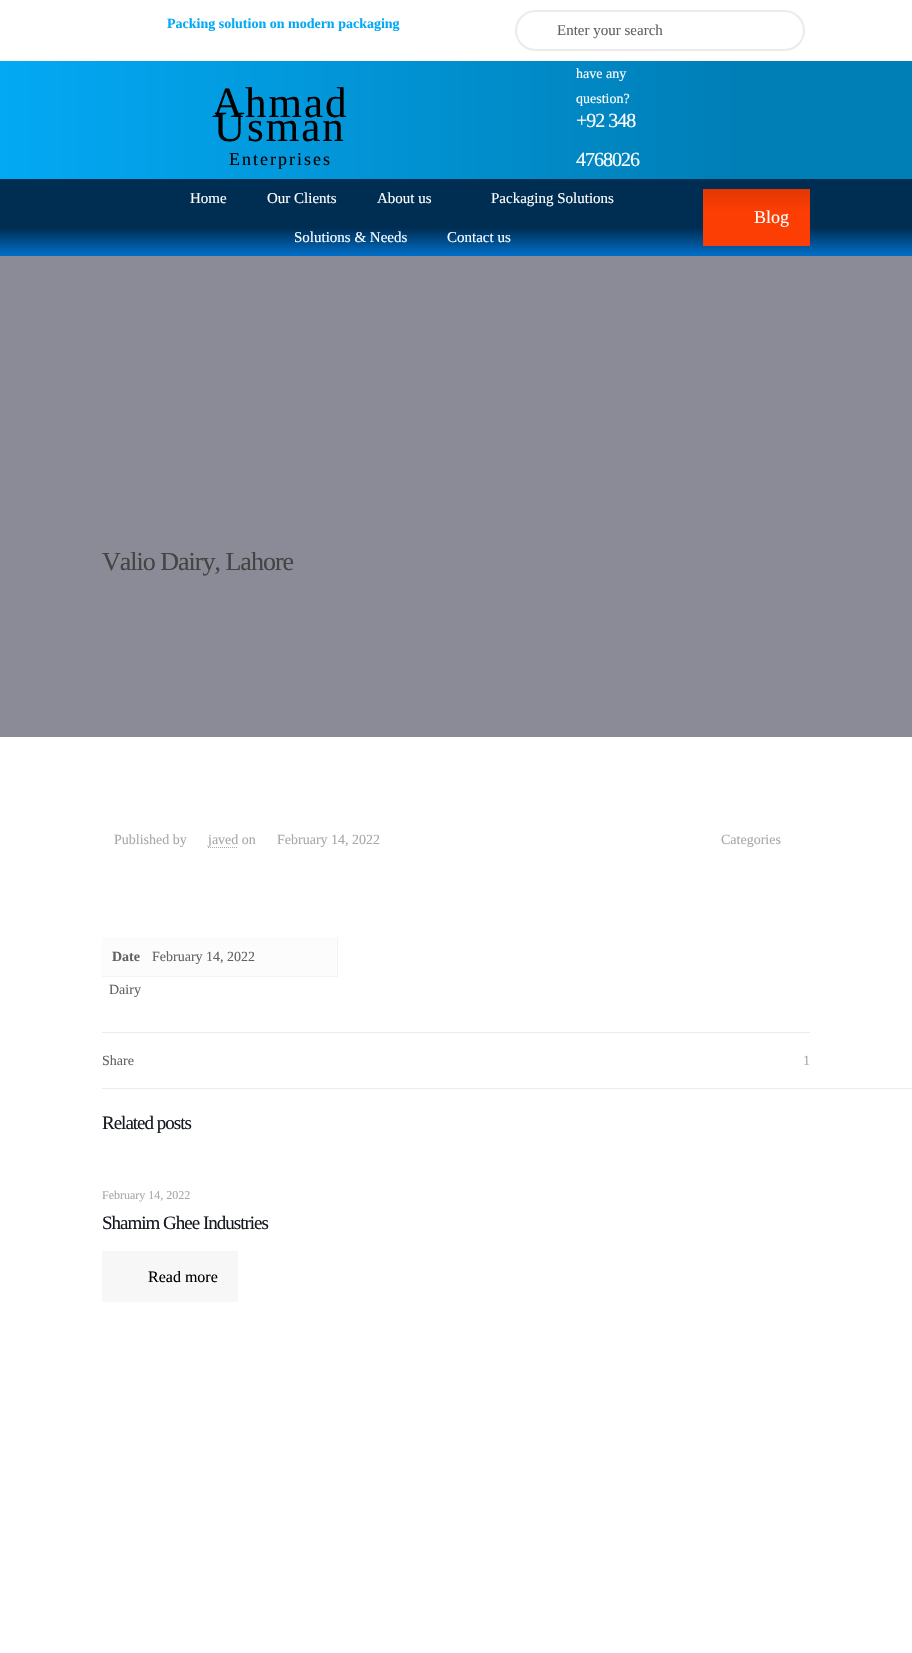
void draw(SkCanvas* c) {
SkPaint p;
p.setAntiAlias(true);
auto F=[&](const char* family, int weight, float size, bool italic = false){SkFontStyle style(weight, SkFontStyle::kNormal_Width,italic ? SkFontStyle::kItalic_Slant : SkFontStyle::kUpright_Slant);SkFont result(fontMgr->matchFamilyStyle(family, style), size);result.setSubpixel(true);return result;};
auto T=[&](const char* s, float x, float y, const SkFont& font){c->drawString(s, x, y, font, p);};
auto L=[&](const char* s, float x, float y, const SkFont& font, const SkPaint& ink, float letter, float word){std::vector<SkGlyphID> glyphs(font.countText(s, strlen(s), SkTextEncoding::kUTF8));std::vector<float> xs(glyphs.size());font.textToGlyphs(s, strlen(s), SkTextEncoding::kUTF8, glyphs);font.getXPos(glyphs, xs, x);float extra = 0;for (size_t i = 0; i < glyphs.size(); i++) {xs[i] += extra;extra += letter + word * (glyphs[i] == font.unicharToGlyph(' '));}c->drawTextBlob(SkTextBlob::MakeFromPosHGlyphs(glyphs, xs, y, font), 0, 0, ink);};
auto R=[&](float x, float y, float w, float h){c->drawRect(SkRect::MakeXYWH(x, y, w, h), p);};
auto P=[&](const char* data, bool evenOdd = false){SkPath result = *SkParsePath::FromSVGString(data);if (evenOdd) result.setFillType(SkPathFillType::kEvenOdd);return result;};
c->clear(0xffffffff);
auto f1 = F("Liberation Serif",700,14);
p.setColor(0xff03a9f4);
T("Packing solution on modern packaging",167,28,f1);
p.setStroke(true);
p.setStrokeWidth(2);
p.setColor(0xffebebeb);
c->drawRoundRect(SkRect::MakeXYWH(516,11,288,39),19.5,19.5,p);
auto f2 = F("Liberation Serif",400,15);
p.setStroke(false);
p.setColor(0xff626262);
T("Enter your search",557,35,f2);
{
const SkColor colors[] = {0xff03a9f4,0xff007eb6};
const float stops[] = {0,.82};
const SkPoint ends[] = {{0,120}, {912,120}};
p.setShader(SkGradientShader::MakeLinear(ends, colors, stops, 2, SkTileMode::kClamp));
p.setAlpha(255);
}
R(0,61,912,118);
auto f3 = F("Liberation Serif",400,43);
p.setShader(nullptr);
p.setColor(0xff000000);
L("Ahmad",212,117,f3,p,2,0);
L("Usman",214,141,f3,p,2,0);
auto f4 = F("Liberation Serif",400,18);
L("Enterprises",229,165,f4,p,2,0);
auto f5 = F("Liberation Serif",400,14);
p.setColor(0xffffffff);
T("have any",576,78,f5);
T("question?",576,103,f5);
auto f6 = F("Liberation Serif",400,20);
L("+92 348",576,127,f6,p,-1,0);
L("4768026",576,166,f6,p,-1,0);
{
const SkColor colors[] = {0xff006fc9,0xff002d52};
const float stops[] = {0,.37};
const SkPoint ends[] = {{456,256}, {456,179}};
p.setShader(SkGradientShader::MakeLinear(ends, colors, stops, 2, SkTileMode::kClamp));
p.setAlpha(255);
}
R(0,179,912,77);
p.setShader(nullptr);
p.setColor(0xffffffff);
T("Home",190,203,f2);
T("Our Clients",267,203,f2);
T("About us",377,203,f2);
T("Packaging Solutions",491,203,f2);
T("Solutions & Needs",294,242,f2);
T("Contact us",447,242,f2);
{
const SkColor colors[] = {0xfffd3e04,0xffe33703};
const float stops[] = {.59,1};
const SkPoint ends[] = {{756,246}, {756,189}};
p.setShader(SkGradientShader::MakeLinear(ends, colors, stops, 2, SkTileMode::kClamp));
p.setAlpha(255);
}
R(703,189,107,57);
p.setShader(nullptr);
p.setColor(0xffffffff);
T("Blog",754,223,f4);
p.setColor(0xff8a8b97);
R(0,256,912,481);
auto f7 = F("Liberation Serif",400,26);
p.setColor(0xff444444);
L("Valio Dairy, Lahore",102,570,f7,p,-1,0);
p.setColor(0xffa8a8a8);
T("Published by",114,844,f5);
T("javed on",208,844,f5);
p.setStroke(true);
p.setStrokeWidth(1);
p.setPathEffect(SkDashPathEffect::Make({{1,1}}, 0));
c->drawPath(P("M208 847.5h30"),p);
p.setPathEffect(nullptr);
p.setStroke(false);
T("February 14, 2022",277,844,f5);
T("Categories",721,844,f5);
p.setColor(0xfffcfcfc);
R(102,937,236,40);
p.setColor(0xfff4f4f4);
c->drawPath(P("M338 937v40l-1-1v-39z"),p);
p.setColor(0x08000000);
c->drawPath(P("M338 977h-236v-1h235z"),p);
p.setColor(0xff626262);
T("Date",112,961,f1);
T("February 14, 2022",152,961,f5);
T("Dairy",109,994,f5);
p.setColor(0xffebebeb);
R(102,1032,708,1);
p.setColor(0xff626262);
T("Share",102,1065,f5);
p.setColor(0xffa8a8a8);
T("1",803,1065,f5);
p.setColor(0xffebebeb);
R(102,1088,810,1);
auto f8 = F("Liberation Serif",400,19);
p.setColor(0xff161922);
L("Related posts",102,1129,f8,p,-1,0);
auto f9 = F("Liberation Serif",400,12);
p.setColor(0xffa8a8a8);
T("February 14, 2022",102,1199,f9);
p.setColor(0xff161922);
L("Shamim Ghee Industries",102,1229,f8,p,-1,0);
p.setColor(0xfff7f7f7);
R(102,1251,136,51);
auto f10 = F("Liberation Serif",400,16);
p.setColor(0xff000000);
T("Read more",148,1282,f10);
}
